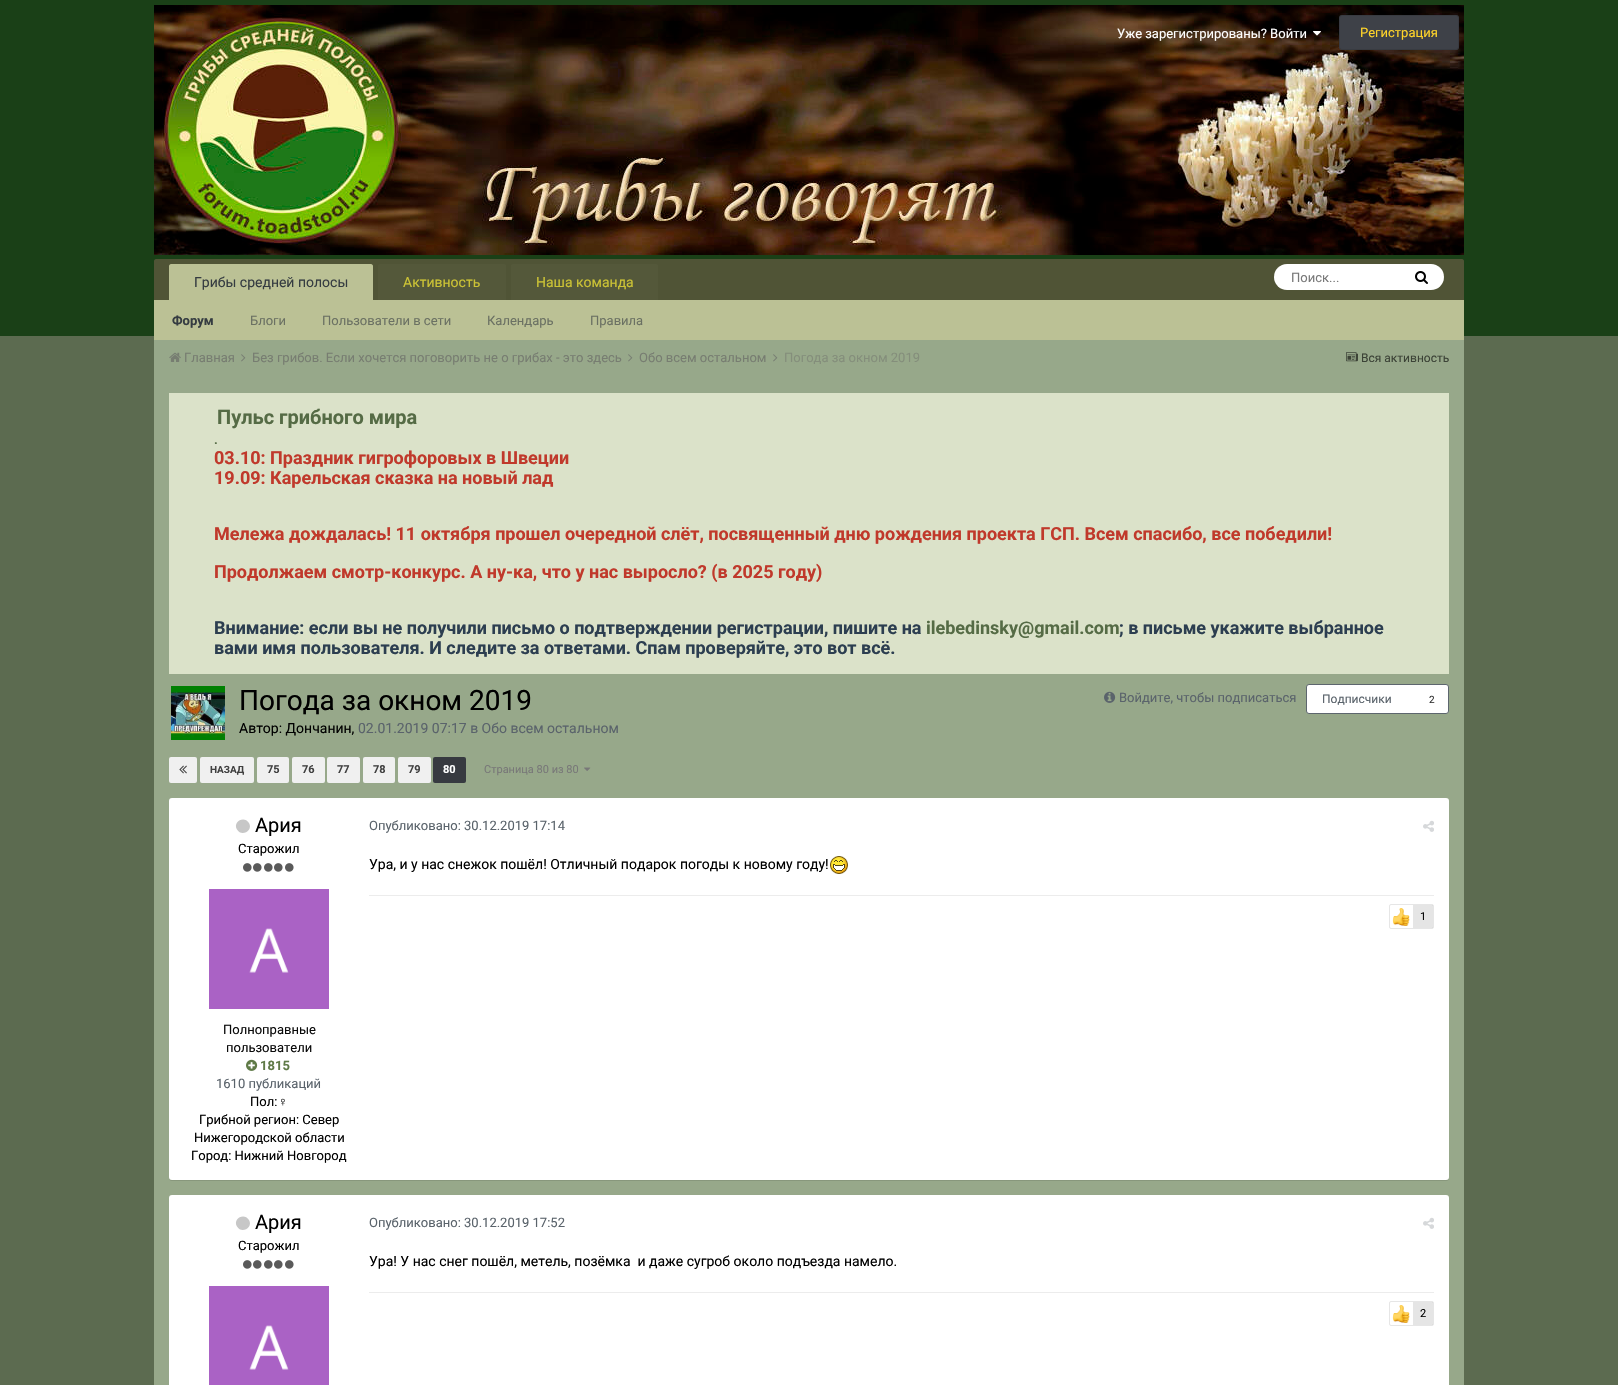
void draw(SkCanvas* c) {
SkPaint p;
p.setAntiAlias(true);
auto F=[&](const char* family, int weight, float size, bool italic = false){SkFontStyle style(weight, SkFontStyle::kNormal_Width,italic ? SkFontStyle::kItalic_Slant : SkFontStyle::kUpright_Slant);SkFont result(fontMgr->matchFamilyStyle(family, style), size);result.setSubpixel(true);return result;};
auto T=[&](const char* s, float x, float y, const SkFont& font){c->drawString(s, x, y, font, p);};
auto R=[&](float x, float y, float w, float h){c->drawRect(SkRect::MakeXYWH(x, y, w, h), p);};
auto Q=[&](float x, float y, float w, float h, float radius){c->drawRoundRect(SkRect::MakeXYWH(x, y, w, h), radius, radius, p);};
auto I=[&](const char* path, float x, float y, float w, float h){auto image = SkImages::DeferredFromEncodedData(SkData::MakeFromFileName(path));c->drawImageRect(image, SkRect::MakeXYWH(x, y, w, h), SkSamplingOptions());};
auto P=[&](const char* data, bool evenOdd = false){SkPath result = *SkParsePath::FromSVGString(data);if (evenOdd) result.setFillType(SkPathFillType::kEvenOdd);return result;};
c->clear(0xff5c6b50);
p.setColor(0xff1a4017);
R(0,0,1618,336);
I("1.png",154,5,1310,250);
auto f1 = F("Roboto",400,13);
p.setColor(0xffffffff);
T("Уже зарегистрированы? Войти",1117,38,f1);
I("2.png",1313,31,8,5);
p.setColor(0xff3e4148);
Q(1339,15,120,35,3);
p.setStroke(true);
p.setStrokeWidth(1);
p.setColor(0x1a000000);
c->drawRoundRect(SkRect::MakeXYWH(1339.5,15.5,119,34),2.5,2.5,p);
p.setStroke(false);
p.setColor(0xffffd429);
T("Регистрация",1360,37,f1);
p.setColor(0xff505436);
c->drawPath(P("M156 259h1306c1 0 2 1 2 2v79h-1310v-79c0-1 1-2 2-2z"),p);
p.setColor(0xffbbc195);
c->drawPath(P("M171 264h200c1 0 2 1 2 2v34h-204v-34c0-1 1-2 2-2z"),p);
auto f2 = F("Roboto",400,14);
p.setColor(0xff353c41);
T("Грибы средней полосы",194,287,f2);
p.setColor(0xffbbc195);
R(154,300,1310,40);
auto f3 = F("Roboto",700,13);
p.setColor(0xff353c41);
T("Форум",172,325,f3);
p.setColor(0xff6b7163);
T("Блоги",250,325,f1);
T("Пользователи в сети",322,325,f1);
T("Календарь",487,325,f1);
T("Правила",590,325,f1);
p.setColor(0xff54583a);
c->drawPath(P("M380 264h124c1 0 2 1 2 2v34h-128v-34c0-1 1-2 2-2z"),p);
p.setColor(0xffccc335);
T("Активность",403,287,f2);
p.setColor(0xff54583a);
c->drawPath(P("M513 264h143c1 0 2 1 2 2v34h-147v-34c0-1 1-2 2-2z"),p);
p.setColor(0xffccc335);
T("Наша команда",536,287,f2);
p.setColor(0xffffffff);
Q(1274,264,170,26,13);
p.setColor(0xff787878);
T("Поиск...",1291,282,f1);
I("3.png",1415,271,13,13);
p.setColor(0xff97a88a);
R(154,340,1310,1045);
I("4.png",169,352,12,10);
p.setColor(0xff777d71);
T("Главная",184,362,f1);
I("5.png",241,354,5,8);
T("Без грибов. Если хочется поговорить не о грибах - это здесь",252,362,f1);
I("5.png",628,354,5,8);
T("Обо всем остальном",639,362,f1);
I("5.png",773,354,5,8);
p.setColor(0xff848e7b);
T("Погода за окном 2019",784,362,f1);
I("6.png",1346,352,12,10);
auto f4 = F("Roboto",400,12);
p.setColor(0xff3c4337);
T("Вся активность",1361,362,f4);
p.setColor(0xffdbe2c9);
R(169,393,1280,281);
auto f5 = F("Roboto",700,20);
p.setColor(0xff556b45);
T("Пульс грибного мира",217,424,f5);
T(".",214,444,f3);
auto f6 = F("Roboto",700,18);
p.setColor(0xffc0392b);
T("03.10: Праздник гигрофоровых в Швеции",214,464,f6);
T("19.09: Карельская сказка на новый лад",214,484,f6);
T("Мележа дождалась! 11 октября прошел очередной слёт, посвященный дню рождения проекта ГСП. Всем спасибо, все победили!",214,540,f6);
T("Продолжаем смотр-конкурс. А ну-ка, что у нас выросло? (в 2025 году)",214,578,f6);
p.setColor(0xff2c3e50);
T("Внимание: если вы не получили письмо о подтверждении регистрации, пишите на",214,634,f6);
p.setColor(0xff556b45);
T("ilebedinsky@gmail.com",926,634,f6);
p.setColor(0xff2c3e50);
T("; в письме укажите выбранное",1119,634,f6);
T("вами имя пользователя. И следите за ответами. Спам проверяйте, это вот всё.",214,654,f6);
I("7.png",171,686,54,54);
auto f7 = F("Roboto",400,28);
p.setColor(0xff000000);
T("Погода за окном 2019",239,710,f7);
T("Автор: Дончанин,",239,733,f2);
p.setColor(0xff5a636b);
T("02.01.2019 07:17 в Обо всем остальном",358,733,f2);
I("8.png",1104,691,12,12);
T("Войдите, чтобы подписаться",1119,702,f1);
p.setColor(0xffffffff);
c->drawRoundRect(SkRect::MakeXYWH(1306.5,684.5,142,29),2.5,2.5,p);
p.setStroke(true);
p.setColor(0xff5d666e);
c->drawRoundRect(SkRect::MakeXYWH(1306.5,684.5,142,29),2.5,2.5,p);
p.setStroke(false);
p.setColor(0xff5a636b);
T("Подписчики",1322,703,f4);
auto f8 = F("Roboto",400,10);
p.setColor(0xff333333);
T("2",1429,703,f8);
p.setColor(0xfff0f0f0);
Q(169,757,28,26,2);
I("9.png",179,765,8,9);
Q(200,757,54,26,2);
auto f9 = F("Roboto",700,10);
p.setColor(0xff414141);
T("НАЗАД",210,773,f9);
p.setColor(0xfff0f0f0);
Q(257,757,32,26,2);
auto f10 = F("Roboto",700,11);
p.setColor(0xff414141);
T("75",267,773,f10);
p.setColor(0xfff0f0f0);
Q(292,757,33,26,2);
p.setColor(0xff414141);
T("76",302,773,f10);
p.setColor(0xfff0f0f0);
Q(327,757,33,26,2);
p.setColor(0xff414141);
T("77",337,773,f10);
p.setColor(0xfff0f0f0);
Q(363,757,32,26,2);
p.setColor(0xff414141);
T("78",373,773,f10);
p.setColor(0xfff0f0f0);
Q(398,757,33,26,2);
p.setColor(0xff414141);
T("79",408,773,f10);
p.setColor(0xff373a40);
Q(433,757,33,26,2);
p.setColor(0xffffffff);
T("80",443,773,f10);
auto f11 = F("Roboto",400,11);
p.setColor(0xff787878);
T("Страница 80 из 80",484,773,f11);
I("10.png",584,767,7,4);
p.setColor(0xff88977c);
c->drawPath(P("M169 1177v1c0 2 1 3 3 3h1274c2 0 3-1 3-3v-1c0 2-1 3-3 3h-1274c-2 0-3-1-3-3z"),p);
p.setColor(0xffffffff);
Q(169,798,1280,382,3);
p.setColor(0xffc7c7c7);
c->drawPath(P("M249 823c4.5 7.5-7.5 14.5-12 6.5c-4.5-7.5 7-14.5 12-6.5z"),p);
auto f12 = F("Roboto",400,20);
p.setColor(0xff000000);
T("Ария",255,832,f12);
T("Старожил",238,853,f1);
I("11.png",243,863,9,9);
I("11.png",253,863,9,9);
I("11.png",264,863,9,9);
I("11.png",274,863,9,9);
I("11.png",285,863,9,9);
I("12.png",209,889,120,120);
p.setColor(0xff0a0a0a);
T("Полноправные",223,1034,f1);
T("пользователи",226,1052,f1);
I("13.png",246,1059,12,12);
p.setColor(0xff5f7a47);
T("1 815",260,1070,f3);
p.setColor(0xff5a636b);
T("1 610 публикаций",216,1088,f1);
p.setColor(0xff000000);
T("Пол:",250,1106,f1);
auto f13 = F("Liberation Sans",400,13);
T("♀",278,1106,f13);
T("Грибной регион: Север",199,1124,f1);
T("Нижегородской области",194,1142,f1);
T("Город: Нижний Новгород",191,1160,f1);
p.setColor(0xff5a636b);
T("Опубликовано: 30.12.2019 17:14",369,830,f1);
I("14.png",1423,820,11,12);
p.setColor(0xff000000);
T("Ура, и у нас снежок пошёл! Отличный подарок погоды к новому году!",369,869,f2);
I("15.png",830,856,18,18);
p.setColor(0xffececec);
R(369,895,1065,1);
p.setStroke(true);
p.setColor(0xffe6e6e6);
c->drawRoundRect(SkRect::MakeXYWH(1389.5,904.5,44,24),1.5,1.5,p);
I("16.png",1392,908,18,18);
p.setStroke(false);
p.setColor(0x1a000000);
R(1413,905,20,23);
p.setColor(0xff000000);
T("1",1420,920,f11);
p.setColor(0xffffffff);
Q(169,1195,1280,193,3);
p.setColor(0xffc7c7c7);
c->drawPath(P("M249 1220c4.5 7.5-7.5 14.5-12 6.5c-4.5-7.5 7-14.5 12-6.5z"),p);
p.setColor(0xff000000);
T("Ария",255,1229,f12);
T("Старожил",238,1250,f1);
I("11.png",243,1260,9,9);
I("11.png",253,1260,9,9);
I("11.png",264,1260,9,9);
I("11.png",274,1260,9,9);
I("11.png",285,1260,9,9);
I("17.png",209,1286,120,99);
p.setColor(0xff5a636b);
T("Опубликовано: 30.12.2019 17:52",369,1227,f1);
I("14.png",1423,1217,11,12);
p.setColor(0xff000000);
T("Ура! У нас снег пошёл, метель, позёмка  и даже сугроб около подъезда намело.",369,1266,f2);
p.setColor(0xffececec);
R(369,1292,1065,1);
p.setStroke(true);
p.setColor(0xffe6e6e6);
c->drawRoundRect(SkRect::MakeXYWH(1389.5,1301.5,44,24),1.5,1.5,p);
I("16.png",1392,1305,18,18);
p.setStroke(false);
p.setColor(0x1a000000);
R(1413,1302,20,23);
p.setColor(0xff000000);
T("2",1420,1317,f11);
}
